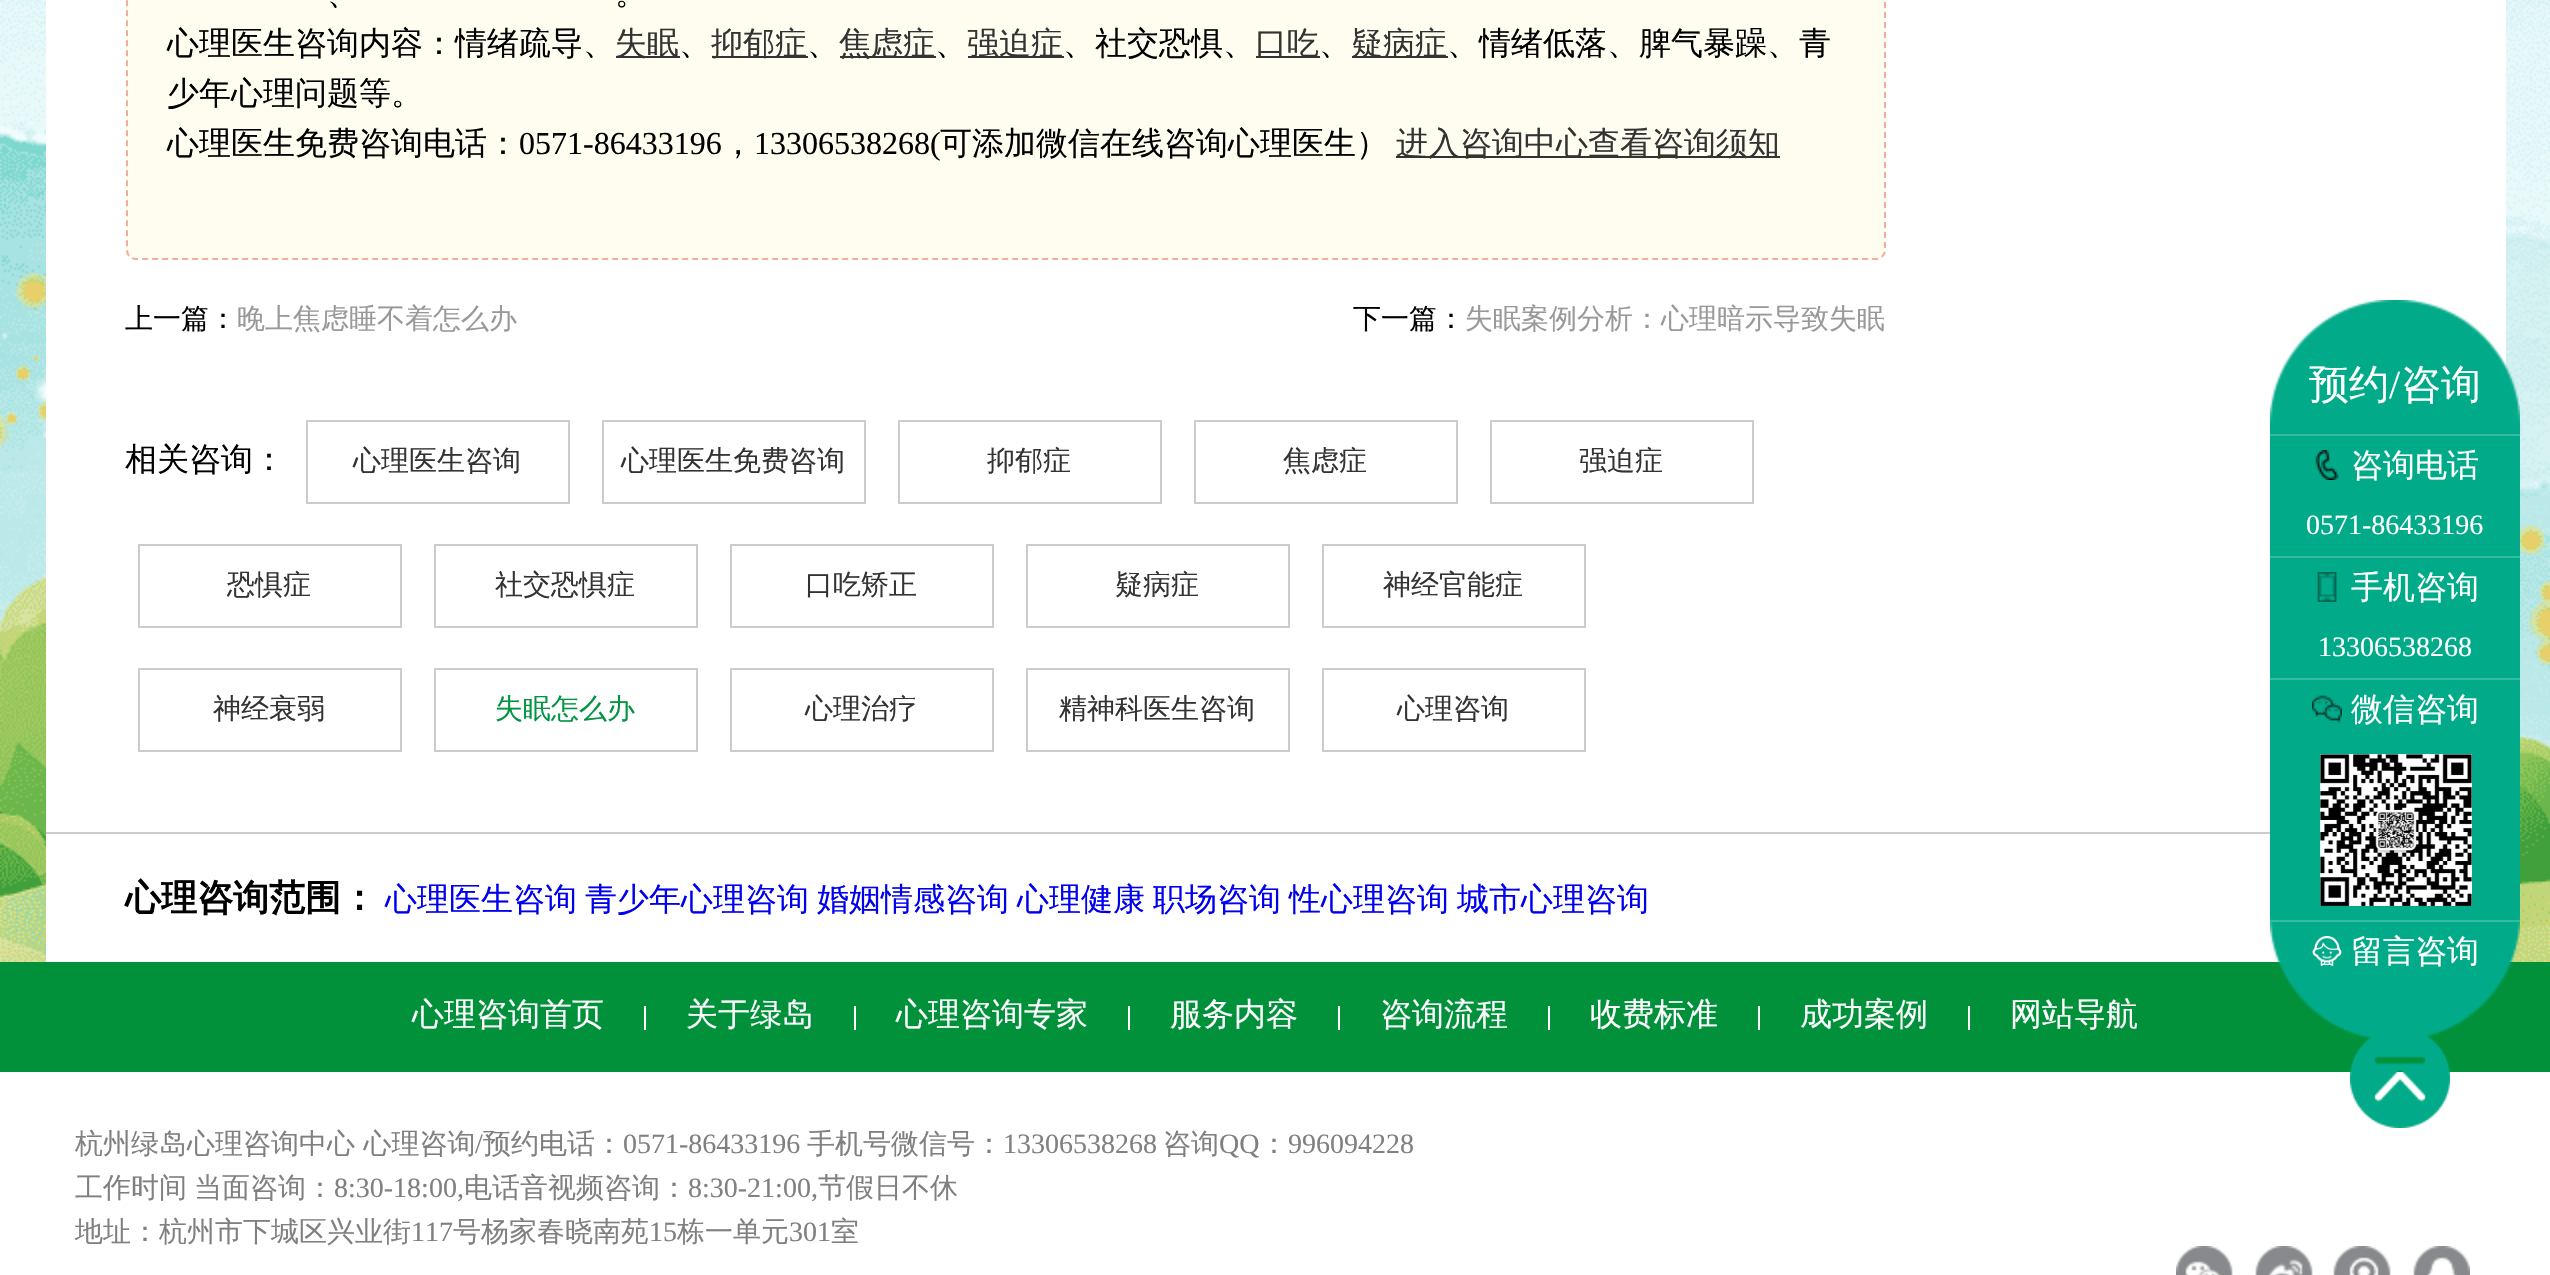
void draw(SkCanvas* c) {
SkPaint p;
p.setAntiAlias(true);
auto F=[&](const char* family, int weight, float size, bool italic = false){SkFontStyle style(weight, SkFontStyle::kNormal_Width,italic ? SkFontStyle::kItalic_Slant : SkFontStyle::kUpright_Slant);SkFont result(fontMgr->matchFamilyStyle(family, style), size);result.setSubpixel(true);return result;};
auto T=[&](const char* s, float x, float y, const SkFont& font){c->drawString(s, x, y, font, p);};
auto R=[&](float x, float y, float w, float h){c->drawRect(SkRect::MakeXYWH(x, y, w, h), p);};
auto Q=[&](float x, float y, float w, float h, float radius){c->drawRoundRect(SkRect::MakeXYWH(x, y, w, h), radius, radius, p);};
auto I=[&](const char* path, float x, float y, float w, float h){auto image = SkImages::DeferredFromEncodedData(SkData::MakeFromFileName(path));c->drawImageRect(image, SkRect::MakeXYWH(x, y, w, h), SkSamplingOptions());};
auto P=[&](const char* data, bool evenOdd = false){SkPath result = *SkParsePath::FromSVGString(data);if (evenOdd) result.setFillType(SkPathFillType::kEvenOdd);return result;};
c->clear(0xffffffff);
I("1.png",0,0,2550,962);
p.setColor(0xffffffff);
R(46,0,2460,832);
p.setColor(0xfffffdf0);
Q(126,-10,1760,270,10);
p.setStroke(true);
p.setStrokeWidth(2);
p.setColor(0xfff1ae9d);
p.setPathEffect(SkDashPathEffect::Make({{6,4}}, 0));
c->drawPath(P("M136-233h1740c5 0 9 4 9 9v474c0 5-4 9-9 9h-1740c-5 0-9-4-9-9v-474c0-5 4-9 9-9z"),p);
p.setPathEffect(nullptr);
auto f1 = F("WenQuanYi Zen Hei",500,32);
p.setStroke(false);
p.setColor(0xff000000);
T("、",327,4,f1);
T("。",615,4,f1);
T("心理医生咨询内容：情绪疏导、",167,54,f1);
p.setColor(0xff333333);
R(616,56,64,2);
T("失眠",615,54,f1);
p.setColor(0xff000000);
T("、",679,54,f1);
p.setColor(0xff333333);
R(712,56,96,2);
T("抑郁症",711,54,f1);
p.setColor(0xff000000);
T("、",807,54,f1);
p.setColor(0xff333333);
R(840,56,96,2);
T("焦虑症",839,54,f1);
p.setColor(0xff000000);
T("、",935,54,f1);
p.setColor(0xff333333);
R(968,56,96,2);
T("强迫症",967,54,f1);
p.setColor(0xff000000);
T("、社交恐惧、",1063,54,f1);
p.setColor(0xff333333);
R(1256,56,64,2);
T("口吃",1255,54,f1);
p.setColor(0xff000000);
T("、",1319,54,f1);
p.setColor(0xff333333);
R(1352,56,96,2);
T("疑病症",1351,54,f1);
p.setColor(0xff000000);
T("、情绪低落、脾气暴躁、青",1447,54,f1);
T("少年心理问题等。",167,104,f1);
T("心理医生免费咨询电话：",167,154,f1);
auto f2 = F("Liberation Serif",400,32);
T("0571-86433196",519,154,f2);
T("，",722,154,f1);
T("13306538268(",754,154,f2);
T("可添加微信在线咨询心理医生）",940,154,f1);
p.setColor(0xff333333);
R(1396,156,384,2);
T("进入咨询中心查看咨询须知",1396,154,f1);
auto f3 = F("WenQuanYi Zen Hei",500,28);
p.setColor(0xff000000);
T("上一篇：",125,328,f3);
p.setColor(0xff999999);
T("晚上焦虑睡不着怎么办",237,328,f3);
p.setColor(0xff000000);
T("下一篇：",1353,328,f3);
p.setColor(0xff999999);
T("失眠案例分析：心理暗示导致失眠",1465,328,f3);
p.setColor(0xff000000);
T("相关咨询：",125,470,f1);
p.setStroke(true);
p.setColor(0xffcccccc);
c->drawRect(SkRect::MakeXYWH(307,421,262,82),p);
p.setStroke(false);
p.setColor(0xff333333);
T("心理医生咨询",353,470,f3);
p.setStroke(true);
p.setColor(0xffcccccc);
c->drawRect(SkRect::MakeXYWH(603,421,262,82),p);
p.setStroke(false);
p.setColor(0xff333333);
T("心理医生免费咨询",621,470,f3);
p.setStroke(true);
p.setColor(0xffcccccc);
c->drawRect(SkRect::MakeXYWH(899,421,262,82),p);
p.setStroke(false);
p.setColor(0xff333333);
T("抑郁症",987,470,f3);
p.setStroke(true);
p.setColor(0xffcccccc);
c->drawRect(SkRect::MakeXYWH(1195,421,262,82),p);
p.setStroke(false);
p.setColor(0xff333333);
T("焦虑症",1283,470,f3);
p.setStroke(true);
p.setColor(0xffcccccc);
c->drawRect(SkRect::MakeXYWH(1491,421,262,82),p);
p.setStroke(false);
p.setColor(0xff333333);
T("强迫症",1579,470,f3);
p.setStroke(true);
p.setColor(0xffcccccc);
c->drawRect(SkRect::MakeXYWH(139,545,262,82),p);
p.setStroke(false);
p.setColor(0xff333333);
T("恐惧症",227,594,f3);
p.setStroke(true);
p.setColor(0xffcccccc);
c->drawRect(SkRect::MakeXYWH(435,545,262,82),p);
p.setStroke(false);
p.setColor(0xff333333);
T("社交恐惧症",495,594,f3);
p.setStroke(true);
p.setColor(0xffcccccc);
c->drawRect(SkRect::MakeXYWH(731,545,262,82),p);
p.setStroke(false);
p.setColor(0xff333333);
T("口吃矫正",805,594,f3);
p.setStroke(true);
p.setColor(0xffcccccc);
c->drawRect(SkRect::MakeXYWH(1027,545,262,82),p);
p.setStroke(false);
p.setColor(0xff333333);
T("疑病症",1115,594,f3);
p.setStroke(true);
p.setColor(0xffcccccc);
c->drawRect(SkRect::MakeXYWH(1323,545,262,82),p);
p.setStroke(false);
p.setColor(0xff333333);
T("神经官能症",1383,594,f3);
p.setStroke(true);
p.setColor(0xffcccccc);
c->drawRect(SkRect::MakeXYWH(139,669,262,82),p);
p.setStroke(false);
p.setColor(0xff333333);
T("神经衰弱",213,718,f3);
p.setStroke(true);
p.setColor(0xffcccccc);
c->drawRect(SkRect::MakeXYWH(435,669,262,82),p);
p.setStroke(false);
p.setColor(0xff019441);
T("失眠怎么办",495,718,f3);
p.setStroke(true);
p.setColor(0xffcccccc);
c->drawRect(SkRect::MakeXYWH(731,669,262,82),p);
p.setStroke(false);
p.setColor(0xff333333);
T("心理治疗",805,718,f3);
p.setStroke(true);
p.setColor(0xffcccccc);
c->drawRect(SkRect::MakeXYWH(1027,669,262,82),p);
p.setStroke(false);
p.setColor(0xff333333);
T("精神科医生咨询",1059,718,f3);
p.setStroke(true);
p.setColor(0xffcccccc);
c->drawRect(SkRect::MakeXYWH(1323,669,262,82),p);
p.setStroke(false);
p.setColor(0xff333333);
T("心理咨询",1397,718,f3);
p.setColor(0xffffffff);
R(46,834,2235,128);
p.setColor(0xffcccccc);
R(46,832,2224,2);
auto f4 = F("WenQuanYi Zen Hei",700,36);
p.setColor(0xff000000);
T("心理咨询范围：",125,910,f4);
p.setColor(0xff0000ee);
T("心理医生咨询",385,910,f1);
T("青少年心理咨询",585,910,f1);
T("婚姻情感咨询",817,910,f1);
T("心理健康",1017,910,f1);
T("职场咨询",1153,910,f1);
T("性心理咨询",1289,910,f1);
T("城市心理咨询",1457,910,f1);
p.setColor(0xff01913b);
R(0,962,2550,110);
I("2.png",2270,300,250,740);
p.setColor(0xff34bba0);
R(2270,434,250,2);
auto f5 = F("WenQuanYi Zen Hei",500,40);
p.setColor(0xffffffff);
T("预约",2309,398,f5);
auto f6 = F("Liberation Serif",400,40);
T("/",2389,398,f6);
T("咨询",2401,398,f5);
p.setColor(0xff34bba0);
R(2270,556,250,2);
I("3.png",2315,450,24,30);
p.setColor(0xffffffff);
T("咨询电话",2351,476,f1);
auto f7 = F("Liberation Serif",400,28);
T("0571-86433196",2306,534,f7);
p.setColor(0xff34bba0);
R(2270,678,250,2);
I("4.png",2317,572,20,30);
p.setColor(0xffffffff);
T("手机咨询",2351,598,f1);
T("13306538268",2318,656,f7);
p.setColor(0xff34bba0);
R(2270,920,250,2);
I("5.png",2312,695,30,28);
p.setColor(0xffffffff);
T("微信咨询",2351,720,f1);
I("6.png",2320,754,152,152);
I("7.png",2312,936,30,30);
T("留言咨询",2351,962,f1);
R(644,1006,2,24);
T("心理咨询首页",412,1025,f1);
R(854,1006,2,24);
T("关于绿岛",686,1025,f1);
R(1128,1006,2,24);
T("心理咨询专家",896,1025,f1);
R(1338,1006,2,24);
T("服务内容",1170,1025,f1);
R(1548,1006,2,24);
T("咨询流程",1380,1025,f1);
R(1758,1006,2,24);
T("收费标准",1590,1025,f1);
R(1968,1006,2,24);
T("成功案例",1800,1025,f1);
T("网站导航",2010,1025,f1);
I("8.png",2350,1035,100,93);
p.setColor(0xff808080);
T("杭州绿岛心理咨询",75,1153,f3);
T("中心 心理咨询",299,1153,f3);
T("/",475,1153,f7);
T("预约电话：",483,1153,f3);
T("0571-86433196",623,1153,f7);
T("手机号微信号：",807,1153,f3);
T("13306538268",1003,1153,f7);
T("咨询",1163,1153,f3);
T("QQ",1219,1153,f7);
T("：",1260,1153,f3);
T("996094228",1288,1153,f7);
T("工作时间",75,1197,f3);
T("当面咨询：",194,1197,f3);
T("8:30-18:00,",334,1197,f7);
T("电话音视频咨询：",464,1197,f3);
T("8:30-21:00,",688,1197,f7);
T("节假日不休",818,1197,f3);
T("地址：杭州市下城区兴业街",75,1241,f3);
T("117",411,1241,f7);
T("号杨家春晓南苑",453,1241,f3);
T("15",649,1241,f7);
T("栋一单元",677,1241,f3);
T("301",789,1241,f7);
T("室",831,1241,f3);
I("9.png",2176,1246,294,29);
}
